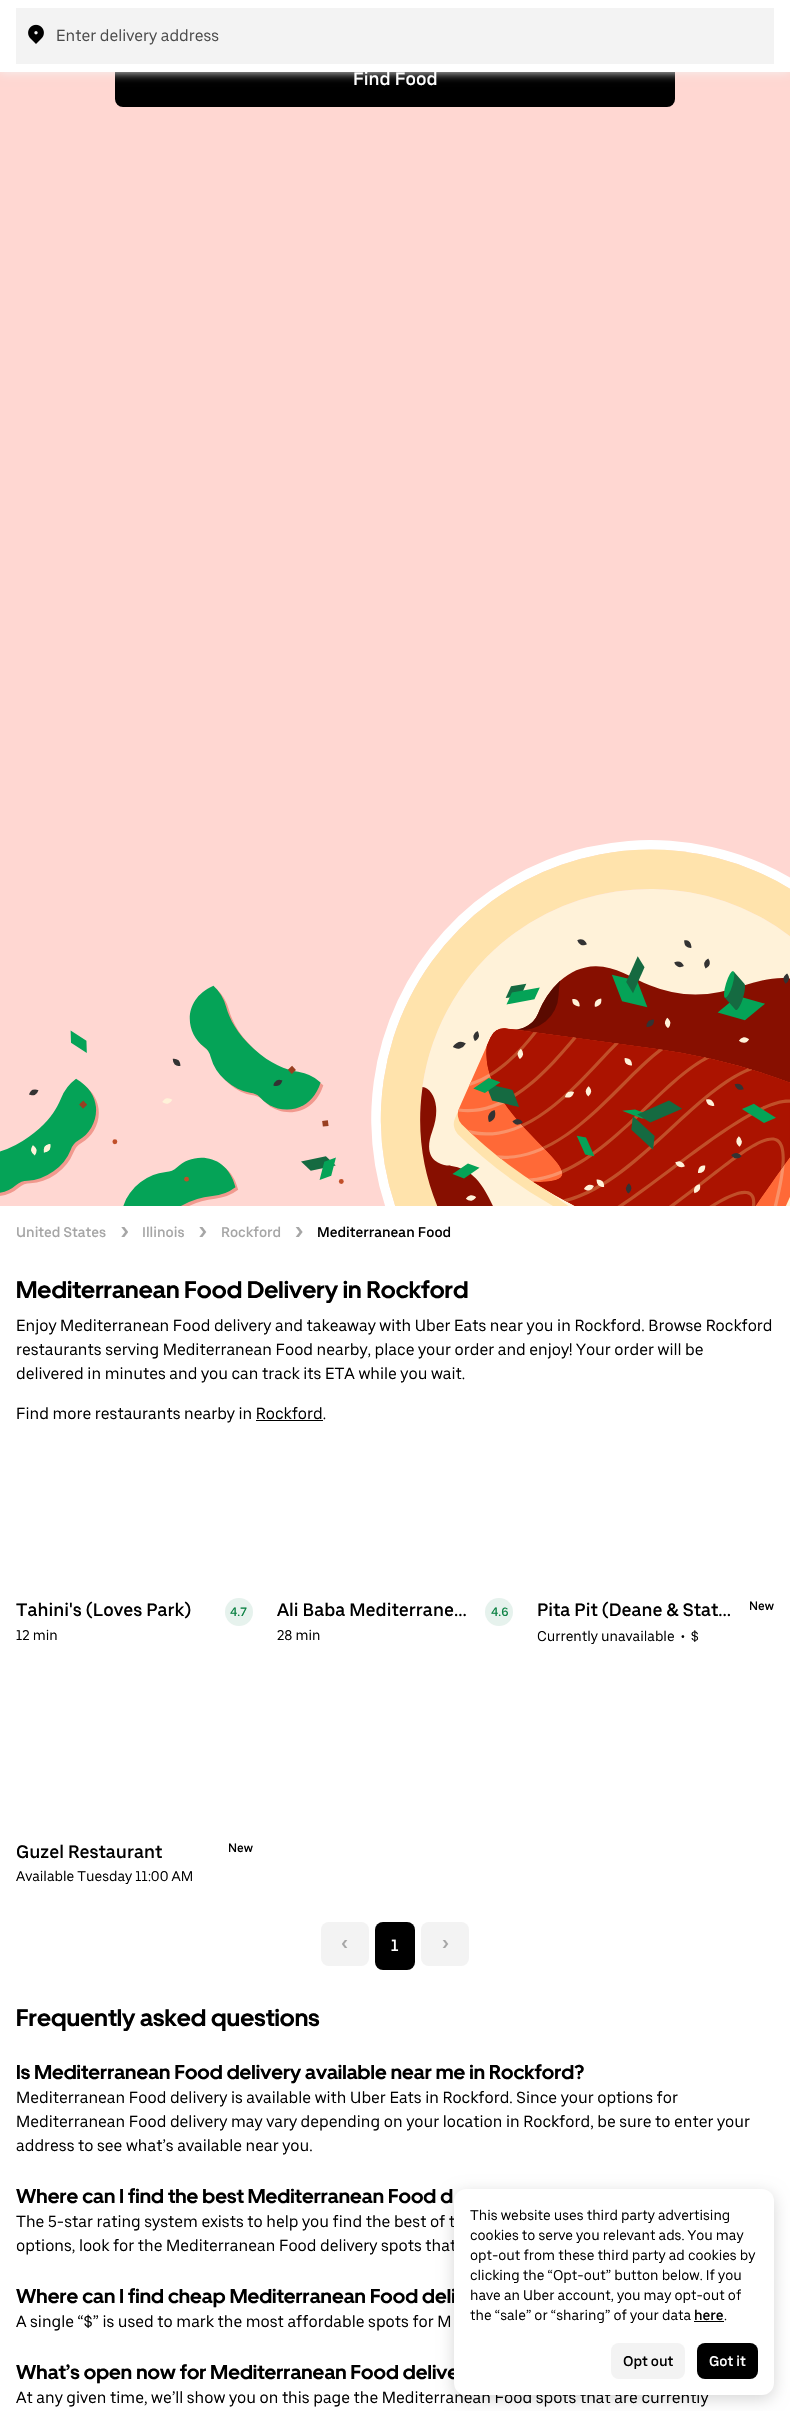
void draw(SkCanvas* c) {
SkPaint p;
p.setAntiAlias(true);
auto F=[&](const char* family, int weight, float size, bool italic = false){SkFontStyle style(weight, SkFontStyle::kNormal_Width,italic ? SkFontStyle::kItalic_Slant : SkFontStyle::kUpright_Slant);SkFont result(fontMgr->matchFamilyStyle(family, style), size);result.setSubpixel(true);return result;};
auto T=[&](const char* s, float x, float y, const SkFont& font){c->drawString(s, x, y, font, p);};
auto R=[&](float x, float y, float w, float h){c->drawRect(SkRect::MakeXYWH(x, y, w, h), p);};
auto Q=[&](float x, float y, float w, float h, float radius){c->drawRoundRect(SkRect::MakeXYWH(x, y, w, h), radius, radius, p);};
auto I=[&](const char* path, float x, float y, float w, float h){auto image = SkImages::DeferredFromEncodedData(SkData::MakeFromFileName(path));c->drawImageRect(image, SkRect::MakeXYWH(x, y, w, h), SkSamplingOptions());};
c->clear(0xffffffff);
p.setColor(0xffffd7d2);
R(0,72,790,1134);
I("1.png",0,840,790,366);
p.setColor(0xff000000);
Q(115,51,560,56,8);
p.setColor(0xfff3f3f3);
p.setMaskFilter(SkMaskFilter::MakeBlur(kNormal_SkBlurStyle, 5));
c->drawRect(SkRect::MakeXYWH(0,0,790,72),p);
p.setMaskFilter(nullptr);
p.setColor(0xffffffff);
R(0,0,790,72);
p.setColor(0xfff3f3f3);
R(16,8,758,56);
I("2.png",28,24,16,20);
auto f1 = F("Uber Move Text",400,16);
p.setColor(0xff4b4b4b);
T("Enter delivery address",56,41,f1);
auto f2 = F("Uber Move Text",500,18);
p.setColor(0xffffffff);
T("Find Food",353,85,f2);
auto f3 = F("Uber Move Text",500,14);
p.setColor(0xffa6a6a6);
T("United States",16,1237,f3);
I("3.png",121,1227,7,10);
T("Illinois",142,1237,f3);
I("4.png",199,1227,8,10);
T("Rockford",221,1237,f3);
I("5.png",295,1227,8,10);
p.setColor(0xff000000);
T("Mediterranean Food",317,1237,f3);
auto f4 = F("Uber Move",700,24);
T("Mediterranean Food Delivery in Rockford",16,1298,f4);
T("Enjoy Mediterranean Food delivery and takeaway with Uber Eats near you in Rockford. Browse Rockford",16,1331,f1);
T("restaurants serving Mediterranean Food nearby, place your order and enjoy! Your order will be",16,1355,f1);
T("delivered in minutes and you can track its ETA while you wait.",16,1379,f1);
T("Find more restaurants nearby in Rockford.",16,1419,f1);
R(256,1420,67,1);
T("Tahini's (Loves Park)",16,1616,f2);
auto f5 = F("Uber Move Text",400,14);
T("12 min",16,1640,f5);
p.setColor(0xffe6f2ed);
c->drawCircle(239,1612,14,p);
auto f6 = F("Uber Move Text",500,12);
p.setColor(0xff0e8345);
T("4.7",230,1616,f6);
p.setColor(0xff000000);
T("Ali Baba Mediterrane…",277,1616,f2);
T("28 min",277,1640,f5);
p.setColor(0xffe6f2ed);
c->drawCircle(499,1612,14,p);
p.setColor(0xff0e8345);
T("4.6",491,1616,f6);
p.setColor(0xff000000);
T("Pita Pit (Deane & Stat…",537,1616,f2);
T("Currently unavailable",537,1641,f5);
T("•",681,1641,f5);
T("$",691,1641,f5);
T("New",749,1610,f6);
T("Guzel Restaurant",16,1858,f2);
T("Available Tuesday 11:00 AM",16,1881,f5);
T("New",228,1852,f6);
p.setColor(0xfff3f3f3);
Q(321,1922,48,44,8);
I("6.png",342,1940,6,8);
p.setColor(0xff000000);
Q(375,1922,40,48,8);
auto f7 = F("Uber Move Text",500,16);
p.setColor(0xffffffff);
T("1",391,1951,f7);
p.setColor(0xfff3f3f3);
Q(421,1922,48,44,8);
I("7.png",442,1940,7,8);
p.setColor(0xff000000);
T("Frequently asked questions",16,2026,f4);
auto f8 = F("Uber Move",700,20);
T("Is Mediterranean Food delivery available near me in Rockford?",16,2079,f8);
T("Mediterranean Food delivery is available with Uber Eats in Rockford. Since your options for",16,2103,f1);
T("Mediterranean Food delivery may vary depending on your location in Rockford, be sure to enter your",16,2127,f1);
T("address to see what’s available near you.",16,2151,f1);
T("Where can I find the best Mediterranean Food d",16,2203,f8);
T("The 5-star rating system exists to help you find the best of t",16,2227,f1);
T("options, look for the Mediterranean Food delivery spots that",16,2251,f1);
T("Where can I find cheap Mediterranean Food deli",16,2303,f8);
T("A single “$” is used to mark the most affordable spots for M",16,2327,f1);
T("What’s open now for Mediterranean Food delive",16,2379,f8);
T("At any given time, we’ll show you on this page the Mediterranean Food spots that are currently",16,2403,f1);
p.setColor(0x29000000);
p.setMaskFilter(SkMaskFilter::MakeBlur(kNormal_SkBlurStyle, 8));
c->drawRoundRect(SkRect::MakeXYWH(454,2193,320,206),12,12,p);
p.setMaskFilter(nullptr);
p.setColor(0xffffffff);
Q(454,2189,320,206,12);
p.setColor(0xff000000);
T("This website uses third party advertising",470,2220,f5);
T("cookies to serve you relevant ads. You may",470,2240,f5);
T("opt-out from these third party ad cookies by",470,2260,f5);
T("clicking the “Opt-out” button below. If you",470,2280,f5);
T("have an Uber account, you may opt-out of",470,2300,f5);
T("the “sale” or “sharing” of your data",470,2320,f5);
T("here",694,2320,f3);
R(694,2321,30,1);
T(".",724,2320,f5);
p.setColor(0xfff3f3f3);
Q(611,2343,74,36,8);
p.setColor(0xff000000);
T("Opt out",623,2366,f3);
Q(697,2343,61,36,8);
p.setColor(0xffffffff);
T("Got it",709,2366,f3);
}
